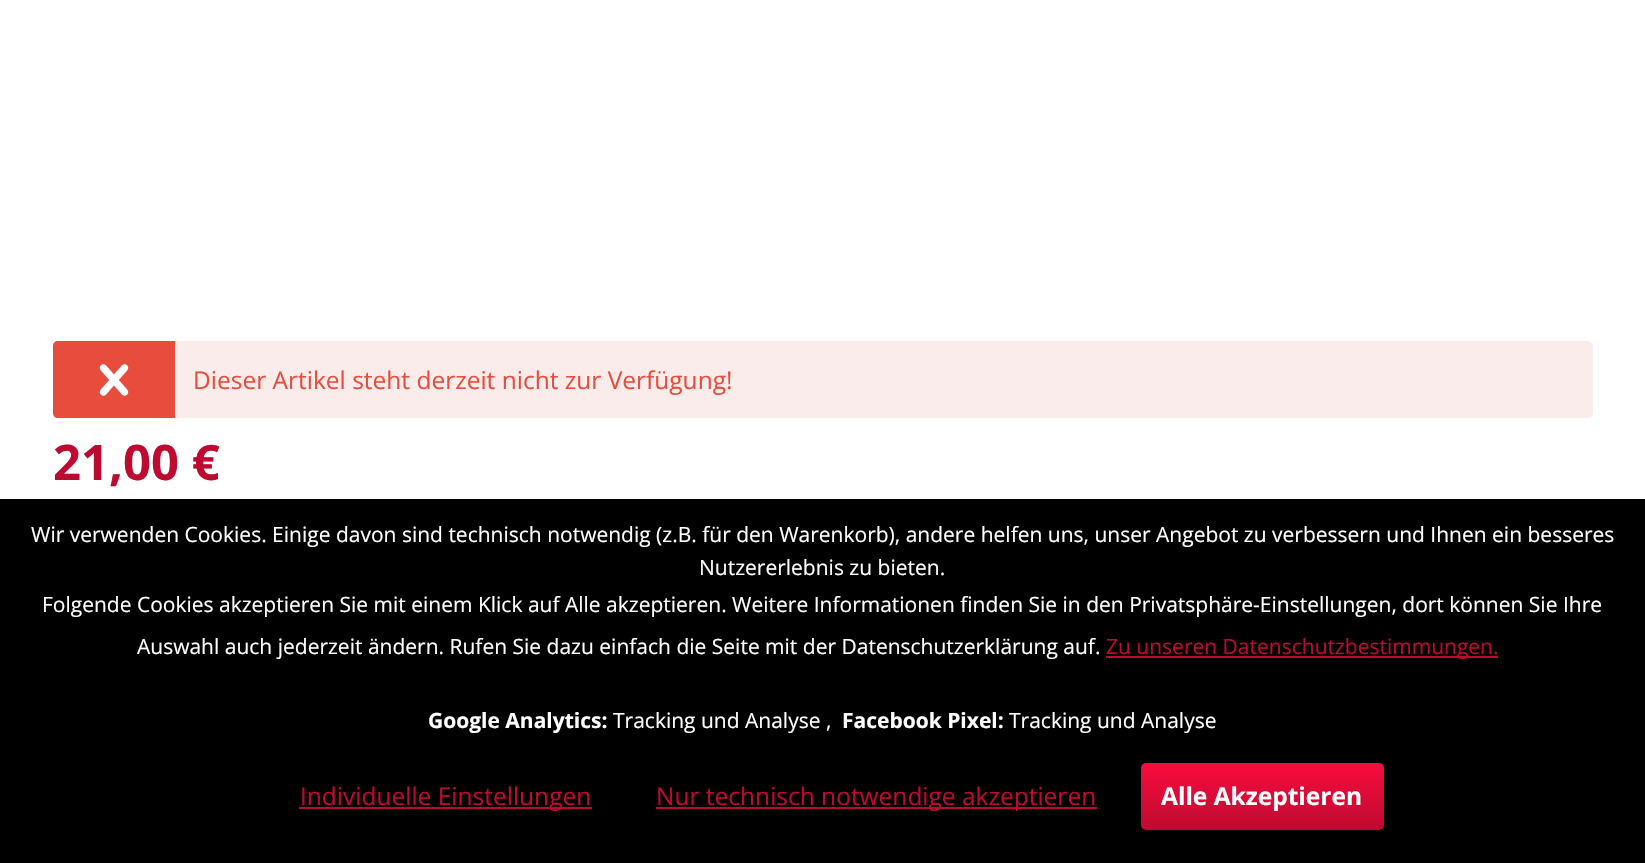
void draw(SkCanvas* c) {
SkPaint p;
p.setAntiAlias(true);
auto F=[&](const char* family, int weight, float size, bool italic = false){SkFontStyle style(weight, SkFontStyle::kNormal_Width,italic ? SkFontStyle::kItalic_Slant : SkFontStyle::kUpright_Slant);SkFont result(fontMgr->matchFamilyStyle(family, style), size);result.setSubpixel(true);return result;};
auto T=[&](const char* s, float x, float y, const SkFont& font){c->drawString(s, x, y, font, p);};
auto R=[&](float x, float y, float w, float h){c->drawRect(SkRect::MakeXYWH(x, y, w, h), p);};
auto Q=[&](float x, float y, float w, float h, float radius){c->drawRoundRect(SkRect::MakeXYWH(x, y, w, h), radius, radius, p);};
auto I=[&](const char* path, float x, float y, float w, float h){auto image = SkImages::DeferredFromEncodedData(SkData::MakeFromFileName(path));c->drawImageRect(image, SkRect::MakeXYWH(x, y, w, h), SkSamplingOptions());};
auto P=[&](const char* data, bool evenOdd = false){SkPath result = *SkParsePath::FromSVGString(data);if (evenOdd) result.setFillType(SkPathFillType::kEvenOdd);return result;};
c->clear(0xffffffff);
p.setColor(0xfffaeceb);
Q(53,341,1540,77,5);
p.setColor(0xffe74c3c);
c->drawPath(P("M58 341h117v77h-117c-3 0-5-2-5-5v-67c0-3 2-5 5-5z"),p);
I("1.png",99,364,30,32);
auto f1 = F("Open Sans",400,24.5);
T("Dieser Artikel steht derzeit nicht zur Verfügung!",193,389,f1);
auto f2 = F("Open Sans",700,49);
p.setColor(0xffbe0a30);
T("21,00 €",53,480,f2);
p.setColor(0xff000000);
R(0,499,1645,364);
auto f3 = F("Open Sans",400,21);
p.setColor(0xffffffff);
T("Wir verwenden Cookies. Einige davon sind technisch notwendig (z.B. für den Warenkorb), andere helfen uns, unser Angebot zu verbessern und Ihnen ein besseres",31,542,f3);
T("Nutzererlebnis zu bieten.",699,575,f3);
T("Folgende Cookies akzeptieren Sie mit einem Klick auf Alle akzeptieren. Weitere Informationen finden Sie in den Privatsphäre-Einstellungen, dort können Sie Ihre",42,612,f3);
T("Auswahl auch jederzeit ändern. Rufen Sie dazu einfach die Seite mit der Datenschutzerklärung auf.",137,654,f3);
p.setColor(0xffbe0a30);
R(1106,656,392,2);
T("Zu unseren Datenschutzbestimmungen.",1106,654,f3);
auto f4 = F("Open Sans",700,21);
p.setColor(0xffffffff);
T("Google Analytics:",428,728,f4);
T("Tracking und Analyse ,",613,728,f3);
T("Facebook Pixel:",842,728,f4);
T("Tracking und Analyse",1009,728,f3);
p.setColor(0xffbe0a30);
R(299,807,293,2);
T("Individuelle Einstellungen",300,805,f1);
R(656,807,441,2);
T("Nur technisch notwendige akzeptieren",656,805,f1);
{
const SkColor colors[] = {0xfff90c3e,0xffbe0a30};
const float stops[] = {0,1};
const SkPoint ends[] = {{1263,763}, {1263,830}};
p.setShader(SkGradientShader::MakeLinear(ends, colors, stops, 2, SkTileMode::kClamp));
p.setAlpha(255);
}
Q(1141,763,243,67,5);
auto f5 = F("Open Sans",700,24.5);
p.setShader(nullptr);
p.setColor(0xffffffff);
T("Alle Akzeptieren",1161,805,f5);
}
